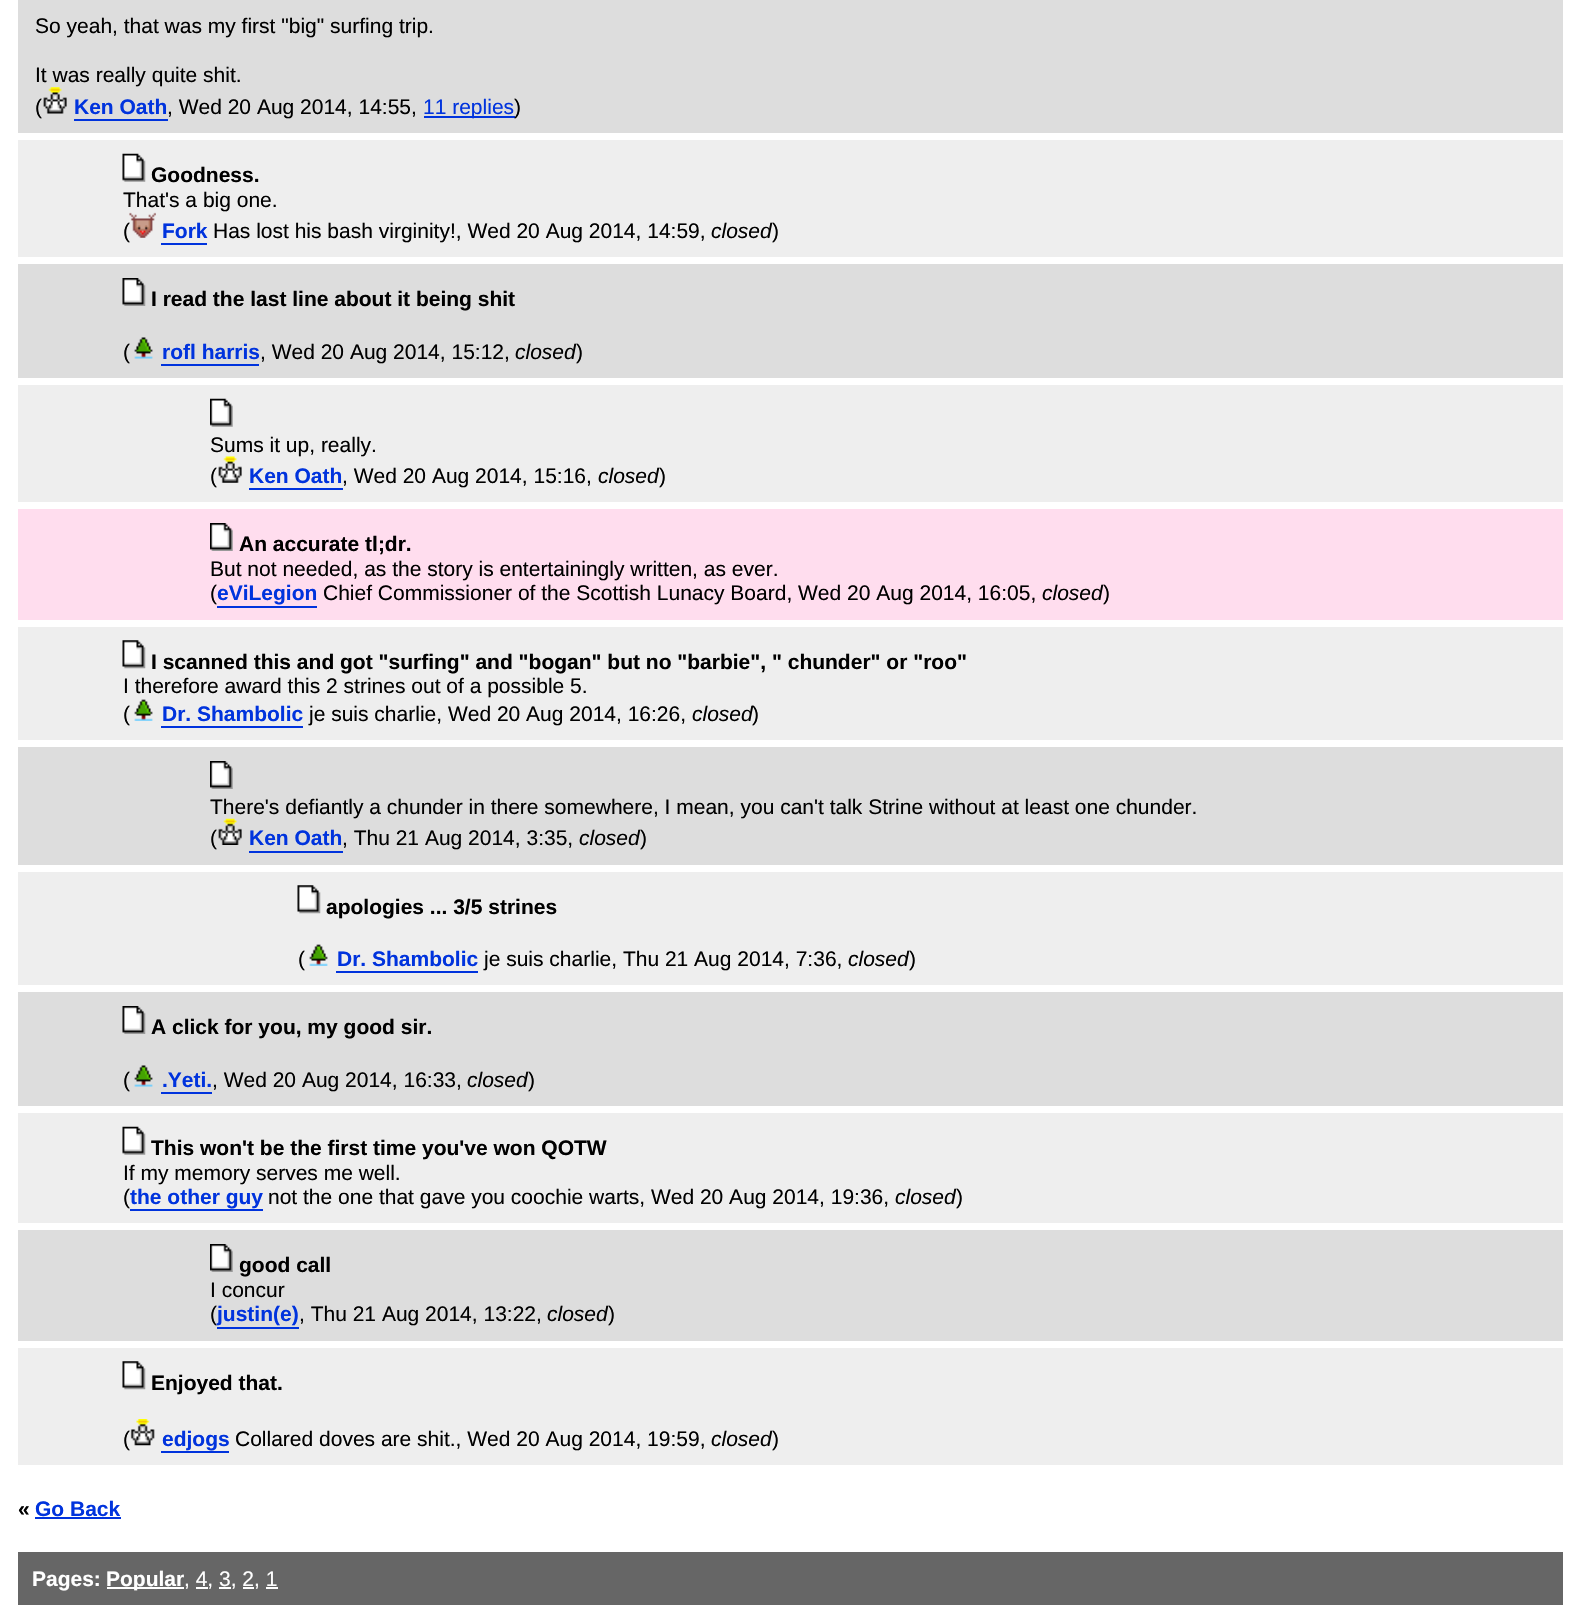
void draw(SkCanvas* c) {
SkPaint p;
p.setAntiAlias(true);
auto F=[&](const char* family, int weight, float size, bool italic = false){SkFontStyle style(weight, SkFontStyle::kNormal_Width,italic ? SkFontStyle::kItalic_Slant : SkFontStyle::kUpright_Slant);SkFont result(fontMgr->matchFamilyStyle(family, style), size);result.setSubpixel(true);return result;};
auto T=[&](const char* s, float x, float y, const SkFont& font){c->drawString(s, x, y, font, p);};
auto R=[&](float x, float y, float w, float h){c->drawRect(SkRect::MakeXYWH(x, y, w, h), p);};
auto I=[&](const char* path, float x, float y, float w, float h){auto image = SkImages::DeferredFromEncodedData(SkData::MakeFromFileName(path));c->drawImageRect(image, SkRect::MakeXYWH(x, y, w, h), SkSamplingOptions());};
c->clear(0xffffffff);
p.setColor(0xffdddddd);
R(18,0,1545,133);
auto f1 = F("Liberation Sans",400,21);
p.setColor(0xff000000);
T("So yeah, that was my first \"big\" surfing trip.",35,33,f1);
T("It was really quite shit.",35,82,f1);
T("(",35,114,f1);
I("1.png",43,87,24,27);
auto f2 = F("Liberation Sans",700,21);
p.setColor(0xff0033dd);
T("Ken Oath",74,114,f2);
R(74,119,94,2);
p.setColor(0xff000000);
T(", Wed 20 Aug 2014, 14:55,",167,114,f1);
p.setColor(0xff0033dd);
R(424,116,91,2);
T("11 replies",423,114,f1);
p.setColor(0xff000000);
T(")",514,114,f1);
p.setColor(0xffeeeeee);
R(18,140,1545,117);
I("2.png",122,153,24,29);
p.setColor(0xff000000);
T("Goodness.",151,182,f2);
T("That's a big one.",123,207,f1);
T("(",123,238,f1);
I("3.png",129,212,27,26);
p.setColor(0xff0033dd);
T("Fork",162,238,f2);
R(161,243,46,2);
p.setColor(0xff000000);
T("Has lost his bash virginity!, Wed 20 Aug 2014, 14:59,",213,238,f1);
auto f3 = F("Liberation Sans",400,21,true);
T("closed",711,238,f3);
T(")",772,238,f1);
p.setColor(0xffdddddd);
R(18,264,1545,114);
I("4.png",122,278,24,28);
p.setColor(0xff000000);
T("I read the last line about it being shit",151,306,f2);
T("(",123,359,f1);
I("5.png",134,337,19,22);
p.setColor(0xff0033dd);
T("rofl harris",162,359,f2);
R(161,364,98,2);
p.setColor(0xff000000);
T(", Wed 20 Aug 2014, 15:12,",260,359,f1);
T("closed",515,359,f3);
T(")",576,359,f1);
p.setColor(0xffeeeeee);
R(18,385,1545,117);
I("6.png",210,398,23,29);
p.setColor(0xff000000);
T("Sums it up, really.",210,452,f1);
T("(",210,483,f1);
I("7.png",218,456,24,27);
p.setColor(0xff0033dd);
T("Ken Oath",249,483,f2);
R(249,488,94,2);
p.setColor(0xff000000);
T(", Wed 20 Aug 2014, 15:16,",342,483,f1);
T("closed",598,483,f3);
T(")",659,483,f1);
p.setColor(0xffffddee);
R(18,509,1545,111);
I("8.png",210,523,23,28);
p.setColor(0xff000000);
T("An accurate tl;dr.",239,551,f2);
T("But not needed, as the story is entertainingly written, as ever.",210,576,f1);
T("(",210,600,f1);
p.setColor(0xff0033dd);
T("eViLegion",217,600,f2);
R(217,606,100,2);
p.setColor(0xff000000);
T("Chief Commissioner of the Scottish Lunacy Board, Wed 20 Aug 2014, 16:05,",323,600,f1);
T("closed",1042,600,f3);
T(")",1103,600,f1);
p.setColor(0xffeeeeee);
R(18,627,1545,113);
I("9.png",122,640,24,29);
p.setColor(0xff000000);
T("I scanned this and got \"surfing\" and \"bogan\" but no \"barbie\", \" chunder\" or \"roo\"",151,669,f2);
T("I therefore award this 2 strines out of a possible 5.",123,693,f1);
T("(",123,721,f1);
I("10.png",134,699,19,22);
p.setColor(0xff0033dd);
T("Dr. Shambolic",162,721,f2);
R(161,726,142,2);
p.setColor(0xff000000);
T("je suis charlie, Wed 20 Aug 2014, 16:26,",309,721,f1);
T("closed",692,721,f3);
T(")",752,721,f1);
p.setColor(0xffdddddd);
R(18,747,1545,118);
I("11.png",210,761,23,28);
p.setColor(0xff000000);
T("There's defiantly a chunder in there somewhere, I mean, you can't talk Strine without at least one chunder.",210,814,f1);
T("(",210,845,f1);
I("12.png",218,818,24,27);
p.setColor(0xff0033dd);
T("Ken Oath",249,845,f2);
R(249,851,94,2);
p.setColor(0xff000000);
T(", Thu 21 Aug 2014, 3:35,",342,845,f1);
T("closed",579,845,f3);
T(")",640,845,f1);
p.setColor(0xffeeeeee);
R(18,872,1545,113);
I("9.png",297,885,24,29);
p.setColor(0xff000000);
T("apologies ... 3/5 strines",326,914,f2);
T("(",298,966,f1);
I("13.png",309,944,19,22);
p.setColor(0xff0033dd);
T("Dr. Shambolic",337,966,f2);
R(336,971,142,2);
p.setColor(0xff000000);
T("je suis charlie, Thu 21 Aug 2014, 7:36,",484,966,f1);
T("closed",848,966,f3);
T(")",909,966,f1);
p.setColor(0xffdddddd);
R(18,992,1545,114);
I("4.png",122,1006,24,28);
p.setColor(0xff000000);
T("A click for you, my good sir.",151,1034,f2);
T("(",123,1087,f1);
I("5.png",134,1065,19,22);
p.setColor(0xff0033dd);
T(".Yeti.",162,1087,f2);
R(161,1092,51,2);
p.setColor(0xff000000);
T(", Wed 20 Aug 2014, 16:33,",212,1087,f1);
T("closed",467,1087,f3);
T(")",528,1087,f1);
p.setColor(0xffeeeeee);
R(18,1113,1545,110);
I("2.png",122,1126,24,29);
p.setColor(0xff000000);
T("This won't be the first time you've won QOTW",151,1155,f2);
T("If my memory serves me well.",123,1180,f1);
T("(",123,1204,f1);
p.setColor(0xff0033dd);
T("the other guy",130,1204,f2);
R(130,1209,133,2);
p.setColor(0xff000000);
T("not the one that gave you coochie warts, Wed 20 Aug 2014, 19:36,",268,1204,f1);
T("closed",895,1204,f3);
T(")",956,1204,f1);
p.setColor(0xffdddddd);
R(18,1230,1545,111);
I("11.png",210,1244,23,28);
p.setColor(0xff000000);
T("good call",239,1272,f2);
T("I concur",210,1297,f1);
T("(",210,1321,f1);
p.setColor(0xff0033dd);
T("justin(e)",217,1321,f2);
R(217,1327,82,2);
p.setColor(0xff000000);
T(", Thu 21 Aug 2014, 13:22,",299,1321,f1);
T("closed",547,1321,f3);
T(")",608,1321,f1);
p.setColor(0xffeeeeee);
R(18,1348,1545,117);
I("9.png",122,1361,24,29);
p.setColor(0xff000000);
T("Enjoyed that.",151,1390,f2);
T("(",123,1446,f1);
I("14.png",130,1419,25,27);
p.setColor(0xff0033dd);
T("edjogs",162,1446,f2);
R(161,1451,68,2);
p.setColor(0xff000000);
T("Collared doves are shit., Wed 20 Aug 2014, 19:59,",235,1446,f1);
T("closed",711,1446,f3);
T(")",772,1446,f1);
T("«",18,1516,f2);
p.setColor(0xff0033dd);
T("Go Back",35,1516,f2);
R(35,1517,86,2);
p.setColor(0xff666666);
R(18,1552,1545,53);
p.setColor(0xffffffff);
T("Pages:",32,1586,f2);
R(107,1587,77,2);
T("Popular",106,1586,f2);
T(", 4, 3, 2, 1",184,1586,f1);
R(196,1587,12,2);
R(219,1587,12,2);
R(243,1587,11,2);
R(266,1587,12,2);
}
